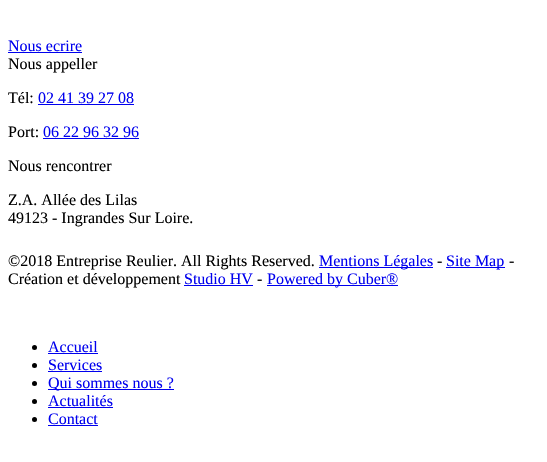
void draw(SkCanvas* c) {
SkPaint p;
p.setAntiAlias(true);
auto F=[&](const char* family, int weight, float size, bool italic = false){SkFontStyle style(weight, SkFontStyle::kNormal_Width,italic ? SkFontStyle::kItalic_Slant : SkFontStyle::kUpright_Slant);SkFont result(fontMgr->matchFamilyStyle(family, style), size);result.setSubpixel(true);return result;};
auto T=[&](const char* s, float x, float y, const SkFont& font){c->drawString(s, x, y, font, p);};
auto R=[&](float x, float y, float w, float h){c->drawRect(SkRect::MakeXYWH(x, y, w, h), p);};
c->clear(0xffffffff);
auto f1 = F("Liberation Serif",400,16);
p.setColor(0xff0000ee);
T("Nous ecrire",8,51,f1);
R(8,52,74,1);
p.setColor(0xff000000);
T("Nous appeller",8,69,f1);
T("Tél:",8,103,f1);
p.setColor(0xff0000ee);
T("02 41 39 27 08",38,103,f1);
R(38,104,96,1);
p.setColor(0xff000000);
T("Port:",8,137,f1);
p.setColor(0xff0000ee);
T("06 22 96 32 96",43,137,f1);
R(43,138,96,1);
p.setColor(0xff000000);
T("Nous rencontrer",8,171,f1);
T("Z.A. Allée des Lilas",8,205,f1);
T("49123 - Ingrandes Sur Loire.",8,223,f1);
T("©2018 Entreprise Reulier. All Rights Reserved.",8,266,f1);
p.setColor(0xff0000ee);
R(319,267,114,1);
T("Mentions Légales",319,266,f1);
p.setColor(0xff000000);
T("-",437,266,f1);
p.setColor(0xff0000ee);
R(446,267,59,1);
T("Site Map",446,266,f1);
p.setColor(0xff000000);
T("-",509,266,f1);
T("Création et développement",8,284,f1);
p.setColor(0xff0000ee);
T("Studio HV",184,284,f1);
R(184,285,69,1);
p.setColor(0xff000000);
T("-",257,284,f1);
p.setColor(0xff0000ee);
R(267,285,131,1);
T("Powered by Cuber®",267,284,f1);
p.setColor(0xff000000);
c->drawCircle(34.5,347.5,2.5,p);
p.setColor(0xff0000ee);
T("Accueil",48,352,f1);
R(48,353,50,1);
p.setColor(0xff000000);
c->drawCircle(34.5,365.5,2.5,p);
p.setColor(0xff0000ee);
T("Services",48,370,f1);
R(48,371,54,1);
p.setColor(0xff000000);
c->drawCircle(34.5,383.5,2.5,p);
p.setColor(0xff0000ee);
R(48,389,126,1);
T("Qui sommes nous ?",48,388,f1);
p.setColor(0xff000000);
c->drawCircle(34.5,401.5,2.5,p);
p.setColor(0xff0000ee);
T("Actualités",48,406,f1);
R(48,407,65,1);
p.setColor(0xff000000);
c->drawCircle(34.5,419.5,2.5,p);
p.setColor(0xff0000ee);
T("Contact",48,424,f1);
R(48,425,50,1);
}
